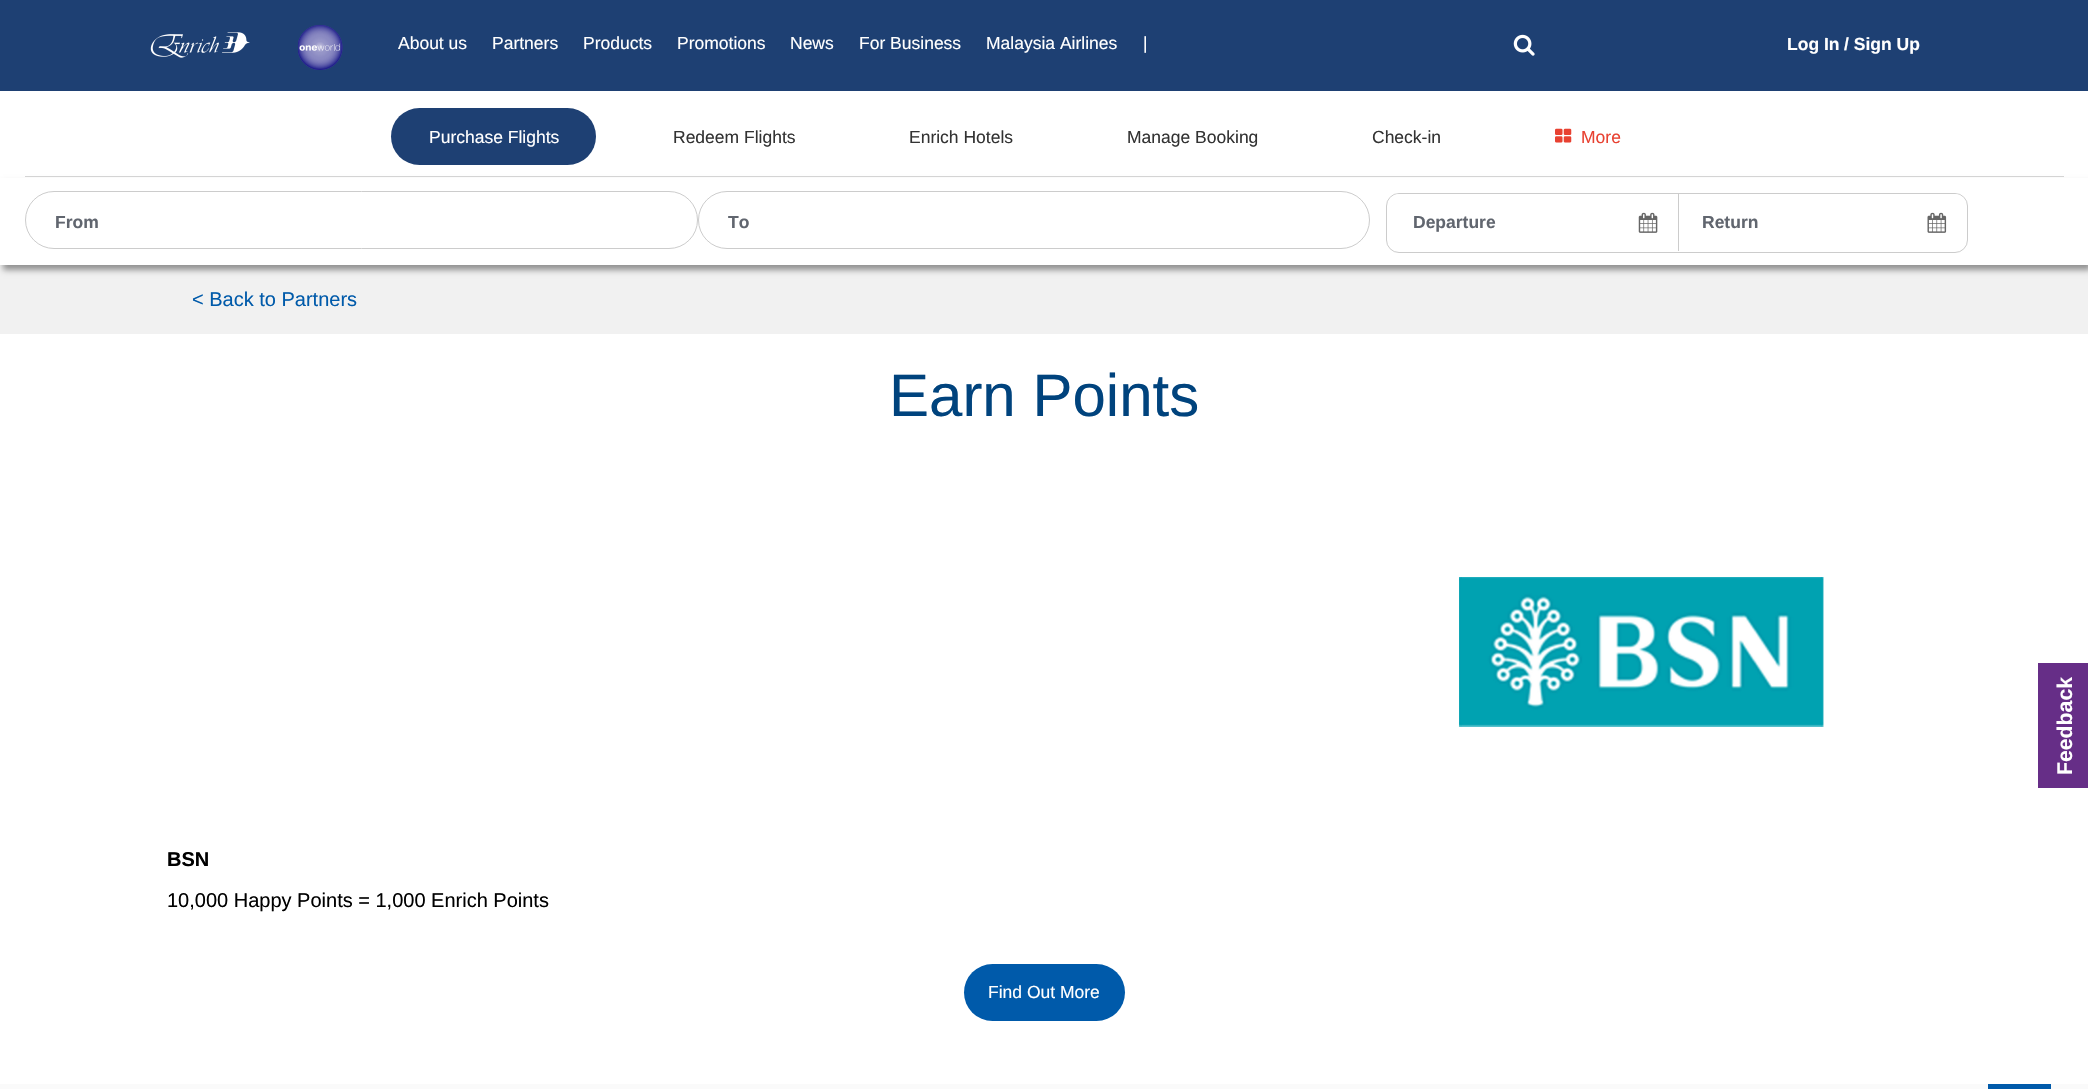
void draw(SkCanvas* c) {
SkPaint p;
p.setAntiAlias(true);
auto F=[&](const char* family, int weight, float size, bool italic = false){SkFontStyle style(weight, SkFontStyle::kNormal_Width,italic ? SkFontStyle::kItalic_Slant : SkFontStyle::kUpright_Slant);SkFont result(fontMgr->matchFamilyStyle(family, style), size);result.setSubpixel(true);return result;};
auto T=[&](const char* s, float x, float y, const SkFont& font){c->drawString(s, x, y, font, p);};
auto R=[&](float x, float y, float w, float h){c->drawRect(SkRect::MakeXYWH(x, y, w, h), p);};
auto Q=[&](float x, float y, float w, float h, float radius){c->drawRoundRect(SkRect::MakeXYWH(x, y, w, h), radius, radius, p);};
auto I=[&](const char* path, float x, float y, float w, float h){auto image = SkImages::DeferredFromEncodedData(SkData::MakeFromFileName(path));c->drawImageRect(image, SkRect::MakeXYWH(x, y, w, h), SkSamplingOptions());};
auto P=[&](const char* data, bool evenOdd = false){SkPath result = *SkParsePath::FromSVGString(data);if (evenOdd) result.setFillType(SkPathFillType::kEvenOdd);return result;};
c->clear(0xffffffff);
p.setColor(0xff1e4073);
R(0,0,2088,91);
I("1.png",150,32,100,26);
I("2.png",298,25,45,45);
auto f1 = F("Liberation Sans",400,17.5);
p.setColor(0xffffffff);
T("About us",398,49,f1);
T("Partners",492,49,f1);
T("Products",583,49,f1);
T("Promotions",677,49,f1);
T("News",790,49,f1);
T("For Business",859,49,f1);
T("Malaysia Airlines",986,49,f1);
T("|",1143,49,f1);
I("3.png",1513,34,22,22);
auto f2 = F("Liberation Sans",700,17.5);
T("Log In",1787,50,f2);
T("/ Sign Up",1844,50,f2);
p.setColor(0xff1e4073);
Q(391,108,205,57,28.5);
p.setColor(0xffffffff);
T("Purchase Flights",429,143,f1);
p.setColor(0xff333333);
T("Redeem Flights",673,143,f1);
T("Enrich Hotels",909,143,f1);
T("Manage Booking",1127,143,f1);
T("Check-in",1372,143,f1);
I("4.png",1555,128,17,15);
p.setColor(0xffe84131);
T("More",1581,143,f1);
p.setColor(0xffd6d6d6);
R(25,176,2039,1);
p.setColor(0xfff1f1f1);
R(0,265,2088,69);
p.setColor(0x66000000);
p.setMaskFilter(SkMaskFilter::MakeBlur(kNormal_SkBlurStyle, 3));
c->drawRect(SkRect::MakeXYWH(3,183,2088,87),p);
p.setMaskFilter(nullptr);
p.setColor(0xffffffff);
R(0,178,2088,87);
p.setStroke(true);
p.setStrokeWidth(1);
p.setColor(0xffcccccc);
c->drawRoundRect(SkRect::MakeXYWH(25.5,191.5,672,57),28.5,28.5,p);
p.setStroke(false);
p.setColor(0xff61666f);
T("From",55,228,f2);
p.setStroke(true);
p.setColor(0xffcccccc);
c->drawRoundRect(SkRect::MakeXYWH(698.5,191.5,671,57),28.5,28.5,p);
p.setStroke(false);
p.setColor(0xff61666f);
T("To",728,228,f2);
p.setStroke(true);
p.setColor(0xffcccccc);
c->drawRoundRect(SkRect::MakeXYWH(1386.5,193.5,581,59),12.5,12.5,p);
p.setStroke(false);
p.setColor(0xffffffff);
c->drawPath(P("M1399 194h279v57h-279c-6 0-11-5-11-11v-35c0-6 5-11 11-11z"),p);
c->drawPath(P("M1678 194h277c6 0 11 5 11 11v35c0 6-5 11-11 11h-277z"),p);
p.setColor(0xffcccccc);
R(1678,194,1,57);
p.setColor(0xff61666f);
T("Departure",1413,228,f2);
T("Return",1702,228,f2);
I("5.png",1638,212,20,21);
I("6.png",1927,212,20,21);
auto f3 = F("Liberation Sans",400,20);
p.setColor(0xff005aaa);
T("< Back to Partners",192,306,f3);
auto f4 = F("Liberation Sans",400,60);
p.setColor(0xff00437d);
T("Earn Points",889,416,f4);
p.setColor(0xfffafafa);
R(0,1084,2088,5);
p.setColor(0xff662e87);
R(2038,663,50,125);
auto f5 = F("Liberation Sans",700,21.25);
p.setColor(0xffffffff);
c->save();
c->rotate(-90,2072,775);
T("Feedback",2072,775,f5);
c->restore();
p.setColor(0xff005aaa);
R(1988,1084,63,5);
I("7.png",1458,577,366,150);
auto f6 = F("Liberation Sans",700,20);
p.setColor(0xff000000);
T("BSN",167,866,f6);
T("10,000 Happy Points = 1,000 Enrich Points",167,907,f3);
p.setColor(0xff005aaa);
Q(964,964,161,57,28.5);
p.setColor(0xffffffff);
T("Find Out More",988,998,f1);
}
